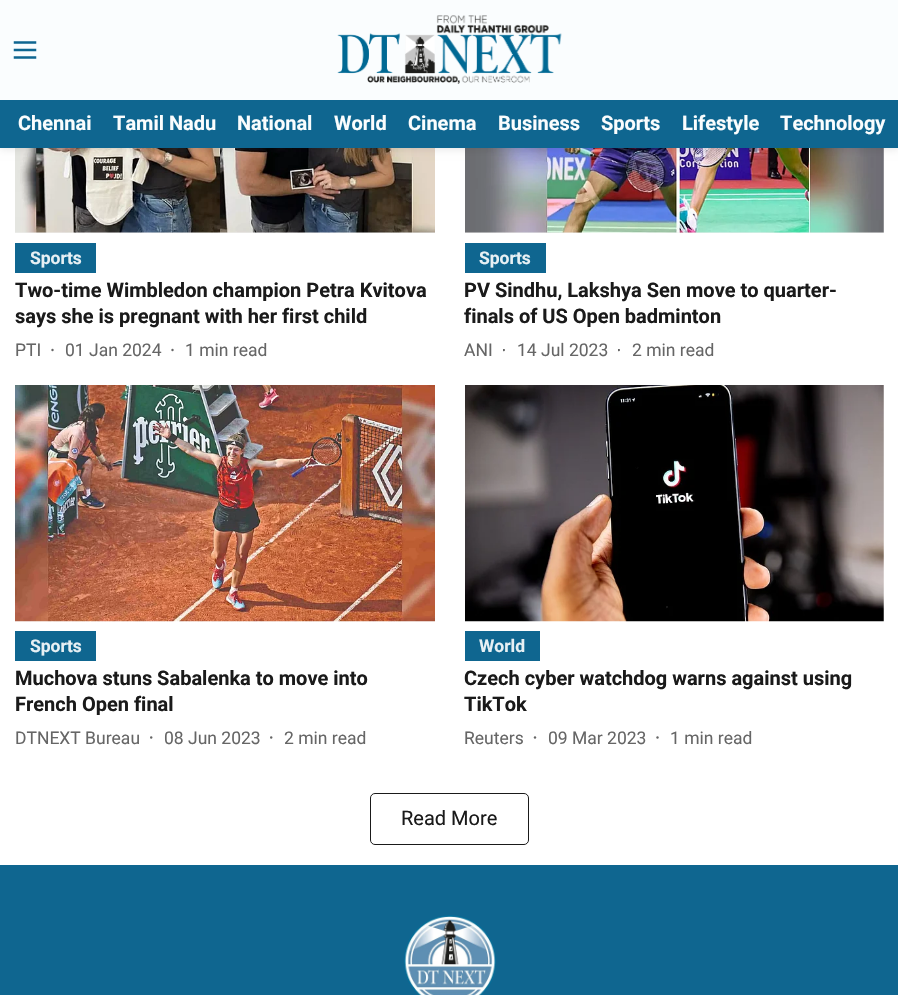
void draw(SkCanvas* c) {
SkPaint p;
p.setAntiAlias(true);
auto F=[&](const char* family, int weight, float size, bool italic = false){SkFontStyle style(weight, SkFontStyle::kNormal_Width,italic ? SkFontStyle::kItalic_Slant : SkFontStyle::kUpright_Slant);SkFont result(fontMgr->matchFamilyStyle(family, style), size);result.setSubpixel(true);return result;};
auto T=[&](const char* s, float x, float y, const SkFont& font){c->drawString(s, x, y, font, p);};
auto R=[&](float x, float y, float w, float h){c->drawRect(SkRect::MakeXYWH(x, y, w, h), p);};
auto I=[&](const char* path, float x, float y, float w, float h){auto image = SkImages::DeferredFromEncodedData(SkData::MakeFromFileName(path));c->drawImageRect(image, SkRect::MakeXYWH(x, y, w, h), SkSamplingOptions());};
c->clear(0xffffffff);
p.setColor(0xfff0f0f0);
R(15,232,420,1);
I("3.png",15,148,420,85);
R(465,148,419,85);
I("4.png",465,148,419,85);
p.setColor(0x1a000000);
p.setMaskFilter(SkMaskFilter::MakeBlur(kNormal_SkBlurStyle, 4));
c->drawRect(SkRect::MakeXYWH(0,1,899,148),p);
p.setMaskFilter(nullptr);
p.setColor(0xfffafdfe);
R(0,0,898,100);
I("1.png",13,41,24,18);
I("2.png",337,15,225,69);
p.setColor(0xff0f6690);
R(0,100,898,48);
auto f1 = F("Roboto",700,20);
p.setColor(0xfffafdfe);
T("Chennai",18,130,f1);
T("Tamil Nadu",113,130,f1);
T("National",237,130,f1);
T("World",334,130,f1);
T("Cinema",408,130,f1);
T("Business",498,130,f1);
T("Sports",601,130,f1);
T("Lifestyle",682,130,f1);
T("Technology",780,130,f1);
p.setColor(0xff0f6690);
R(15,243,81,30);
auto f2 = F("Roboto",700,17.5);
p.setColor(0xffe7f0f4);
T("Sports",30,264,f2);
p.setColor(0xff1a1a1a);
T("Two-time Wimbledon champion Petra Kvitova",15,297,f1);
T("says she is pregnant with her first child",15,323,f1);
auto f3 = F("Roboto",400,17.5);
p.setColor(0xff666666);
T("PTI",15,356,f3);
c->drawCircle(52.5,350,1.2,p);
T("01 Jan 2024",65,356,f3);
c->drawCircle(172.5,350,1.2,p);
T("1 min read",185,356,f3);
p.setColor(0xff0f6690);
R(465,243,81,30);
p.setColor(0xffe7f0f4);
T("Sports",479,264,f2);
p.setColor(0xff1a1a1a);
T("PV Sindhu, Lakshya Sen move to quarter-",464,297,f1);
T("finals of US Open badminton",464,323,f1);
p.setColor(0xff666666);
T("ANI",464,356,f3);
c->save();
c->clipRect(SkRect::MakeXYWH(503,349,4,4));
c->drawCircle(503.8,350,1.2,p);
c->restore();
T("14 Jul 2023",517,356,f3);
c->save();
c->clipRect(SkRect::MakeXYWH(618,349,4,4));
c->drawCircle(618.8,350,1.2,p);
c->restore();
T("2 min read",632,356,f3);
I("5.png",15,385,420,237);
p.setColor(0xff0f6690);
R(15,631,81,30);
p.setColor(0xffe7f0f4);
T("Sports",30,652,f2);
p.setColor(0xff1a1a1a);
T("Muchova stuns Sabalenka to move into",15,685,f1);
T("French Open final",15,711,f1);
p.setColor(0xff666666);
T("DTNEXT Bureau",15,744,f3);
c->drawCircle(151.2,737.5,1.2,p);
T("08 Jun 2023",164,744,f3);
c->drawCircle(271.2,737.5,1.2,p);
T("2 min read",284,744,f3);
I("6.png",465,385,419,237);
p.setColor(0xff0f6690);
R(465,631,75,30);
p.setColor(0xffe7f0f4);
T("World",479,652,f2);
p.setColor(0xff1a1a1a);
T("Czech cyber watchdog warns against using",464,685,f1);
T("TikTok",464,711,f1);
p.setColor(0xff666666);
T("Reuters",464,744,f3);
c->drawCircle(535,737.5,1.2,p);
T("09 Mar 2023",548,744,f3);
c->drawCircle(657.5,737.5,1.2,p);
T("1 min read",670,744,f3);
p.setStroke(true);
p.setStrokeWidth(1);
p.setColor(0xff1a1a1a);
c->drawRoundRect(SkRect::MakeXYWH(370.5,793.5,158,51),4.5,4.5,p);
auto f4 = F("Roboto",400,20);
p.setStroke(false);
T("Read More",401,825,f4);
p.setColor(0xff0f6690);
R(0,865,898,130);
I("7.png",404,915,92,80);
}
